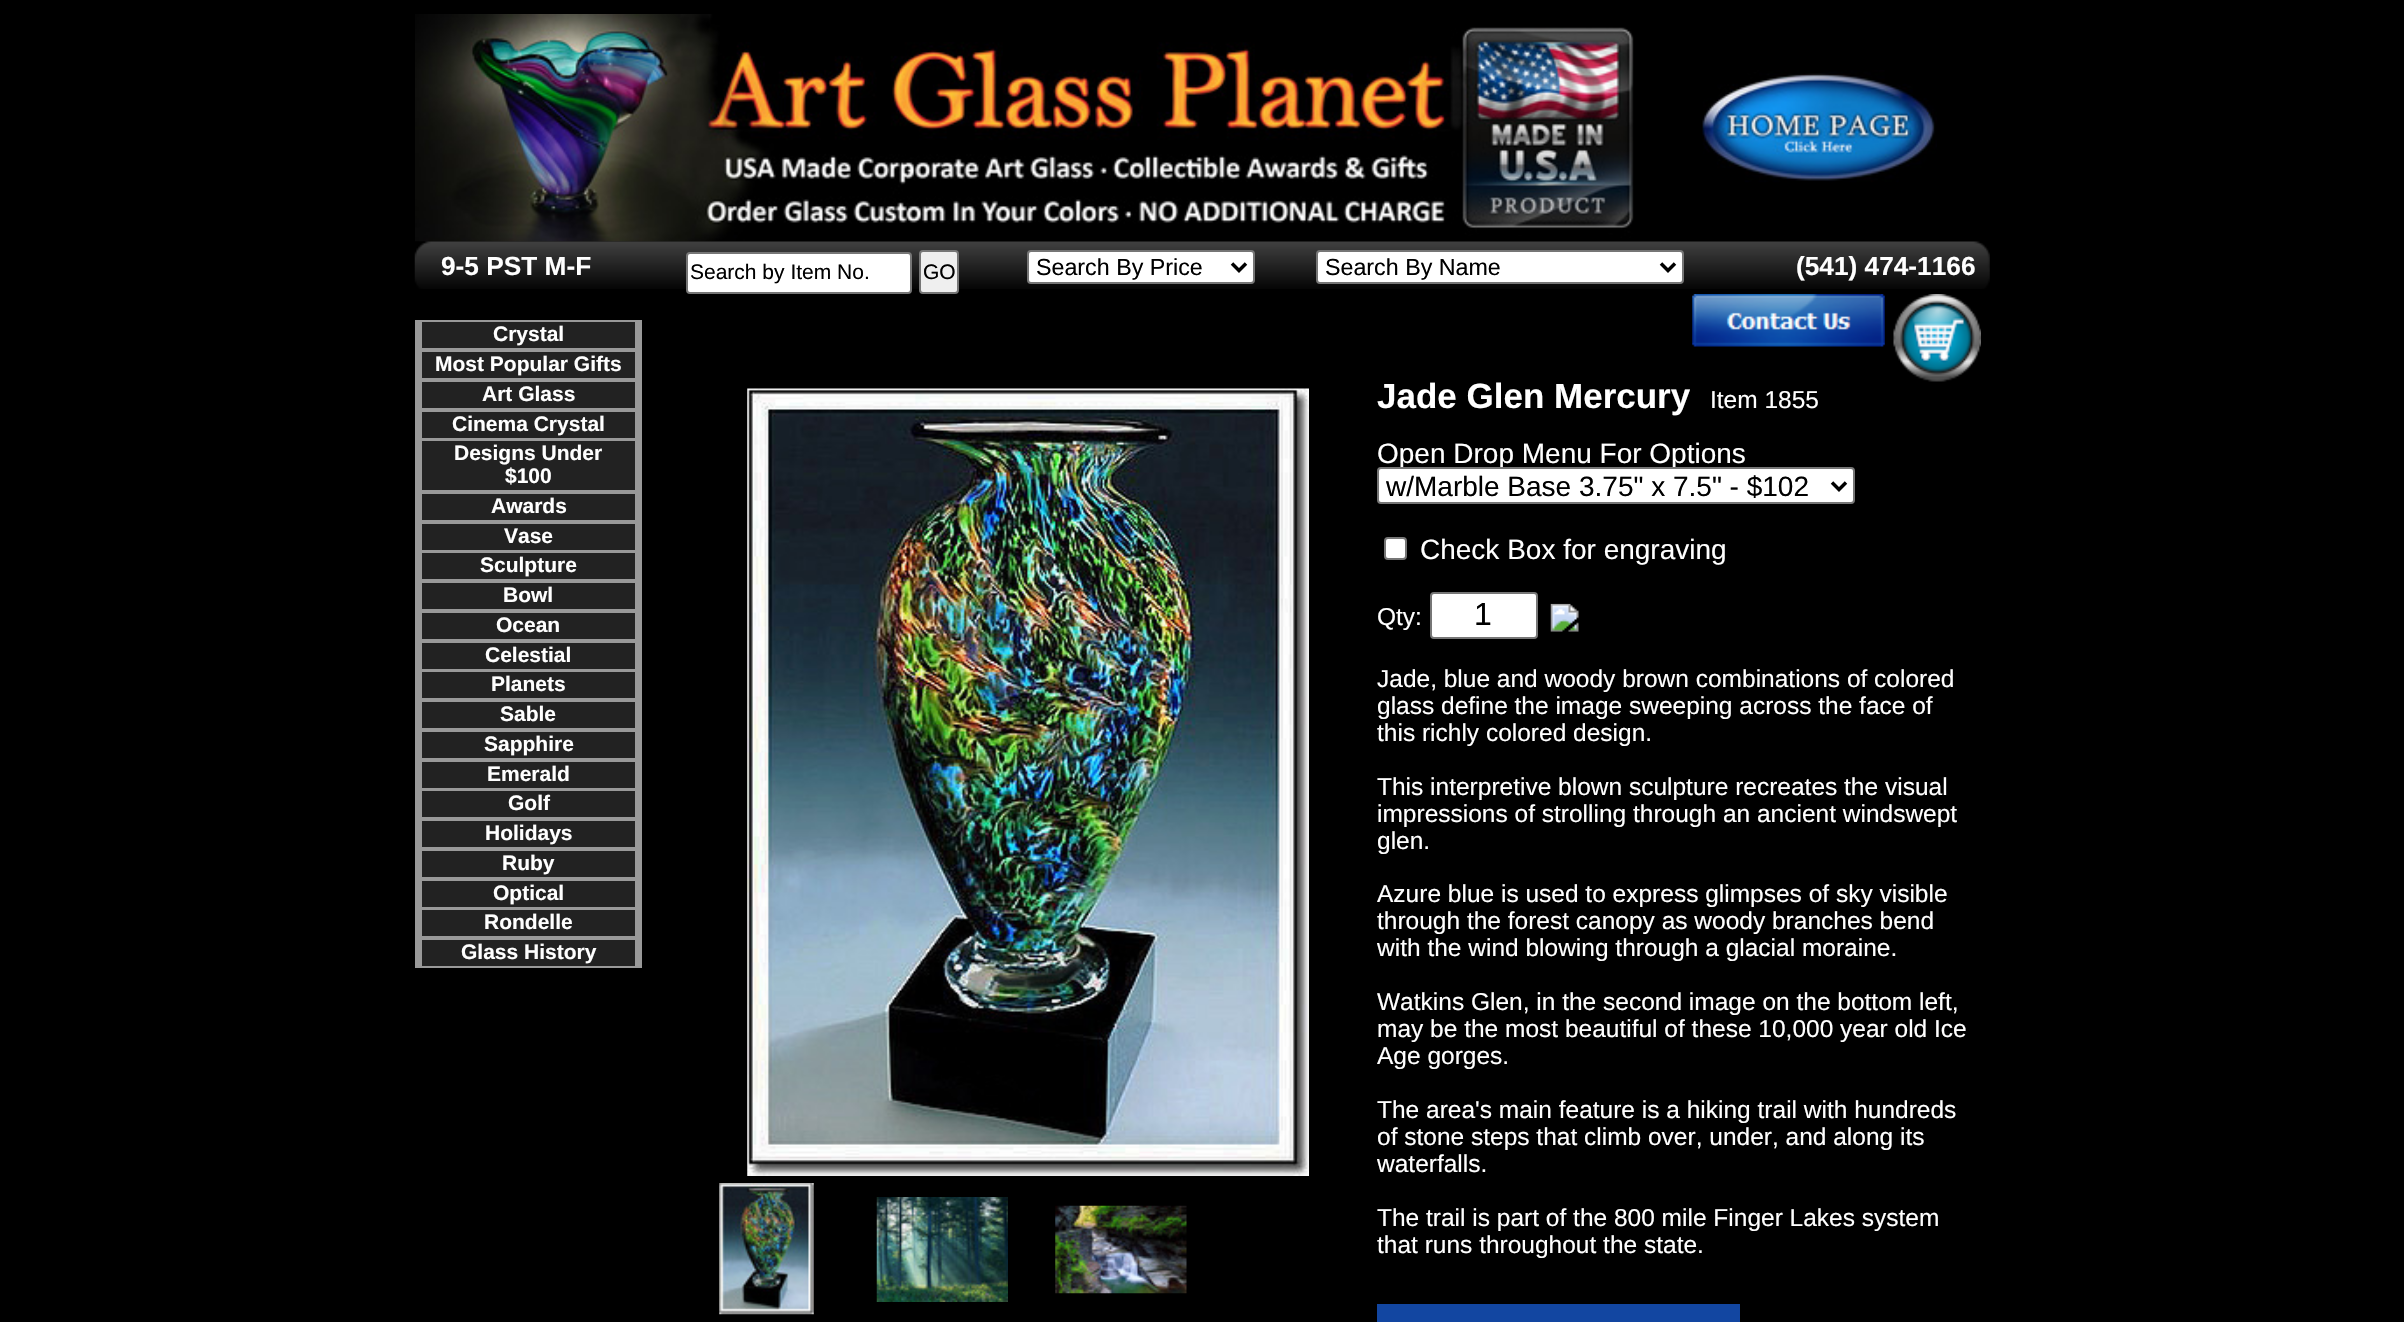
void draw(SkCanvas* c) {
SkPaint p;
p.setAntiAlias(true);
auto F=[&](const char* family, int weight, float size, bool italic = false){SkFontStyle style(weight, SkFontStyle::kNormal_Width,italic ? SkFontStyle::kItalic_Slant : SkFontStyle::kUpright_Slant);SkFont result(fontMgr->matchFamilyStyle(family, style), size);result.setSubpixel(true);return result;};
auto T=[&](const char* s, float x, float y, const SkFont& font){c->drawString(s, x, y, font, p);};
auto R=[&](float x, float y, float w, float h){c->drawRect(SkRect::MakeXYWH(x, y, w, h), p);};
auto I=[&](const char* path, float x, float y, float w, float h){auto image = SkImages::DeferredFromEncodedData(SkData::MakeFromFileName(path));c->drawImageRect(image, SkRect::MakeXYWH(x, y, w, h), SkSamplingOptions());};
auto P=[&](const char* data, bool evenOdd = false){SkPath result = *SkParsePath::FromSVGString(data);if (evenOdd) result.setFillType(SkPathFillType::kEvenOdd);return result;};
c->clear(0xff000000);
I("1.png",415,14,1522,228);
I("2.png",414,241,1576,48);
auto f1 = F("Liberation Sans",700,26.25);
p.setColor(0xffffffff);
T("9-5 PST M-F",441,275,f1);
c->drawRoundRect(SkRect::MakeXYWH(687,253,224,40),3,3,p);
p.setStroke(true);
p.setStrokeWidth(2);
p.setColor(0xff767676);
c->drawRoundRect(SkRect::MakeXYWH(687,253,224,40),3,3,p);
auto f2 = F("Liberation Sans",400,21);
p.setStroke(false);
p.setColor(0xff000000);
T("Search by Item No.",690,279,f2);
p.setColor(0xffefefef);
c->drawRoundRect(SkRect::MakeXYWH(920,251,38,42),3,3,p);
p.setStroke(true);
p.setColor(0xff767676);
c->drawRoundRect(SkRect::MakeXYWH(920,251,38,42),3,3,p);
p.setStroke(false);
p.setColor(0xff000000);
T("GO",923,279,f2);
p.setColor(0xffffffff);
c->drawRoundRect(SkRect::MakeXYWH(1028,251,226,32),3,3,p);
p.setStroke(true);
p.setColor(0xff767676);
c->drawRoundRect(SkRect::MakeXYWH(1028,251,226,32),3,3,p);
p.setStrokeWidth(3.5);
p.setColor(0xff000000);
c->drawPath(P("M1232 263.5l7 7l7-7"),p);
auto f3 = F("Liberation Sans",400,23.25);
p.setStroke(false);
T("Search By Price",1036,275,f3);
p.setColor(0xffffffff);
c->drawRoundRect(SkRect::MakeXYWH(1317,251,366,32),3,3,p);
p.setStroke(true);
p.setStrokeWidth(2);
p.setColor(0xff767676);
c->drawRoundRect(SkRect::MakeXYWH(1317,251,366,32),3,3,p);
p.setStrokeWidth(3.5);
p.setColor(0xff000000);
c->drawPath(P("M1661 263.5l7 7l7-7"),p);
p.setStroke(false);
T("Search By Name",1325,275,f3);
p.setColor(0xffffffff);
T("(541) 474-1166",1796,275,f1);
p.setColor(0xff222222);
R(422,322,213,26);
p.setColor(0xff999999);
R(415,320,227,2);
R(635,320,7,30);
R(415,348,227,4);
R(415,320,7,30);
auto f4 = F("Liberation Sans",700,21);
p.setColor(0xffffffff);
T("Crystal",493,341,f4);
p.setColor(0xff222222);
R(422,352,213,26);
p.setColor(0xff999999);
R(635,350,7,30);
R(415,378,227,4);
R(415,350,7,30);
p.setColor(0xffffffff);
T("Most Popular Gifts",435,371,f4);
p.setColor(0xff222222);
R(422,382,213,26);
p.setColor(0xff999999);
R(635,380,7,30);
R(415,408,227,4);
R(415,380,7,30);
p.setColor(0xffffffff);
T("Art Glass",482,401,f4);
p.setColor(0xff222222);
R(422,412,213,26);
p.setColor(0xff999999);
R(635,410,7,29);
R(415,438,227,3);
R(415,410,7,29);
p.setColor(0xffffffff);
T("Cinema Crystal",452,431,f4);
p.setColor(0xff222222);
R(422,441,213,49);
p.setColor(0xff999999);
R(635,439,7,53);
R(415,490,227,4);
R(415,439,7,53);
p.setColor(0xffffffff);
T("Designs Under",454,460,f4);
T("$100",505,483,f4);
p.setColor(0xff222222);
R(422,494,213,26);
p.setColor(0xff999999);
R(635,492,7,30);
R(415,520,227,4);
R(415,492,7,30);
p.setColor(0xffffffff);
T("Awards",491,513,f4);
p.setColor(0xff222222);
R(422,524,213,26);
p.setColor(0xff999999);
R(635,522,7,29);
R(415,550,227,3);
R(415,522,7,29);
p.setColor(0xffffffff);
T("Vase",504,543,f4);
p.setColor(0xff222222);
R(422,553,213,26);
p.setColor(0xff999999);
R(635,551,7,30);
R(415,579,227,4);
R(415,551,7,30);
p.setColor(0xffffffff);
T("Sculpture",480,572,f4);
p.setColor(0xff222222);
R(422,583,213,26);
p.setColor(0xff999999);
R(635,581,7,30);
R(415,609,227,4);
R(415,581,7,30);
p.setColor(0xffffffff);
T("Bowl",503,602,f4);
p.setColor(0xff222222);
R(422,613,213,26);
p.setColor(0xff999999);
R(635,611,7,30);
R(415,639,227,4);
R(415,611,7,30);
p.setColor(0xffffffff);
T("Ocean",496,632,f4);
p.setColor(0xff222222);
R(422,643,213,26);
p.setColor(0xff999999);
R(635,641,7,29);
R(415,669,227,3);
R(415,641,7,29);
p.setColor(0xffffffff);
T("Celestial",485,662,f4);
p.setColor(0xff222222);
R(422,672,213,26);
p.setColor(0xff999999);
R(635,670,7,30);
R(415,698,227,4);
R(415,670,7,30);
p.setColor(0xffffffff);
T("Planets",491,691,f4);
p.setColor(0xff222222);
R(422,702,213,26);
p.setColor(0xff999999);
R(635,700,7,30);
R(415,728,227,4);
R(415,700,7,30);
p.setColor(0xffffffff);
T("Sable",500,721,f4);
p.setColor(0xff222222);
R(422,732,213,26);
p.setColor(0xff999999);
R(635,730,7,30);
R(415,758,227,4);
R(415,730,7,30);
p.setColor(0xffffffff);
T("Sapphire",484,751,f4);
p.setColor(0xff222222);
R(422,762,213,26);
p.setColor(0xff999999);
R(635,760,7,29);
R(415,788,227,3);
R(415,760,7,29);
p.setColor(0xffffffff);
T("Emerald",487,781,f4);
p.setColor(0xff222222);
R(422,791,213,26);
p.setColor(0xff999999);
R(635,789,7,30);
R(415,817,227,4);
R(415,789,7,30);
p.setColor(0xffffffff);
T("Golf",508,810,f4);
p.setColor(0xff222222);
R(422,821,213,26);
p.setColor(0xff999999);
R(635,819,7,30);
R(415,847,227,4);
R(415,819,7,30);
p.setColor(0xffffffff);
T("Holidays",485,840,f4);
p.setColor(0xff222222);
R(422,851,213,26);
p.setColor(0xff999999);
R(635,849,7,30);
R(415,877,227,4);
R(415,849,7,30);
p.setColor(0xffffffff);
T("Ruby",502,870,f4);
p.setColor(0xff222222);
R(422,881,213,26);
p.setColor(0xff999999);
R(635,879,7,29);
R(415,907,227,3);
R(415,879,7,29);
p.setColor(0xffffffff);
T("Optical",493,900,f4);
p.setColor(0xff222222);
R(422,910,213,26);
p.setColor(0xff999999);
R(635,908,7,30);
R(415,936,227,4);
R(415,908,7,30);
p.setColor(0xffffffff);
T("Rondelle",484,929,f4);
p.setColor(0xff222222);
R(422,940,213,26);
p.setColor(0xff999999);
R(635,938,7,30);
R(415,966,227,2);
R(415,938,7,30);
p.setColor(0xffffffff);
T("Glass History",461,959,f4);
I("3.png",1692,294,193,53);
I("4.png",1893,294,88,88);
I("5.png",747,388,562,788);
I("6.png",719,1183,95,132);
I("7.png",876,1197,132,105);
I("8.png",1055,1205,132,89);
auto f5 = F("Liberation Sans",700,35);
T("Jade Glen Mercury",1377,408,f5);
auto f6 = F("Liberation Sans",400,24.5);
T("Item 1855",1710,408,f6);
auto f7 = F("Liberation Sans",400,28);
T("Open Drop Menu For Options",1377,463,f7);
c->drawRoundRect(SkRect::MakeXYWH(1378,468,476,35),3,3,p);
p.setStroke(true);
p.setStrokeWidth(2);
p.setColor(0xff767676);
c->drawRoundRect(SkRect::MakeXYWH(1378,468,476,35),3,3,p);
p.setStrokeWidth(3.5);
p.setColor(0xff000000);
c->drawPath(P("M1832 482.5l7 7l7-7"),p);
p.setStroke(false);
T("w/Marble Base 3.75\" x 7.5\" - $102",1386,496,f7);
p.setColor(0xffffffff);
c->drawRoundRect(SkRect::MakeXYWH(1385,538,21,21),3,3,p);
p.setStroke(true);
p.setStrokeWidth(2);
p.setColor(0xff767676);
c->drawRoundRect(SkRect::MakeXYWH(1385,538,21,21),3,3,p);
p.setStroke(false);
p.setColor(0xffffffff);
T("Check Box for engraving",1420,559,f7);
T("Qty:",1377,625,f6);
c->drawRoundRect(SkRect::MakeXYWH(1431,593,106,45),3,3,p);
p.setStroke(true);
p.setColor(0xff767676);
c->drawRoundRect(SkRect::MakeXYWH(1431,593,106,45),3,3,p);
auto f8 = F("Liberation Sans",400,32);
p.setStroke(false);
p.setColor(0xff000000);
T("1",1474,625,f8);
I("9.png",1550,603,29,29);
p.setColor(0xffffffff);
T("Jade, blue and woody brown combinations of colored",1377,687,f6);
T("glass define the image sweeping across the face of",1377,714,f6);
T("this richly colored design.",1377,741,f6);
T("This interpretive blown sculpture recreates the visual",1377,795,f6);
T("impressions of strolling through an ancient windswept",1377,822,f6);
T("glen.",1377,849,f6);
T("Azure blue is used to express glimpses of sky visible",1377,902,f6);
T("through the forest canopy as woody branches bend",1377,929,f6);
T("with the wind blowing through a glacial moraine.",1377,956,f6);
T("Watkins Glen, in the second image on the bottom left,",1377,1010,f6);
T("may be the most beautiful of these 10,000 year old Ice",1377,1037,f6);
T("Age gorges.",1377,1064,f6);
T("The area's main feature is a hiking trail with hundreds",1377,1118,f6);
T("of stone steps that climb over, under, and along its",1377,1145,f6);
T("waterfalls.",1377,1172,f6);
T("The trail is part of the 800 mile Finger Lakes system",1377,1226,f6);
T("that runs throughout the state.",1377,1253,f6);
p.setColor(0xff1246a1);
R(1377,1304,363,18);
}
